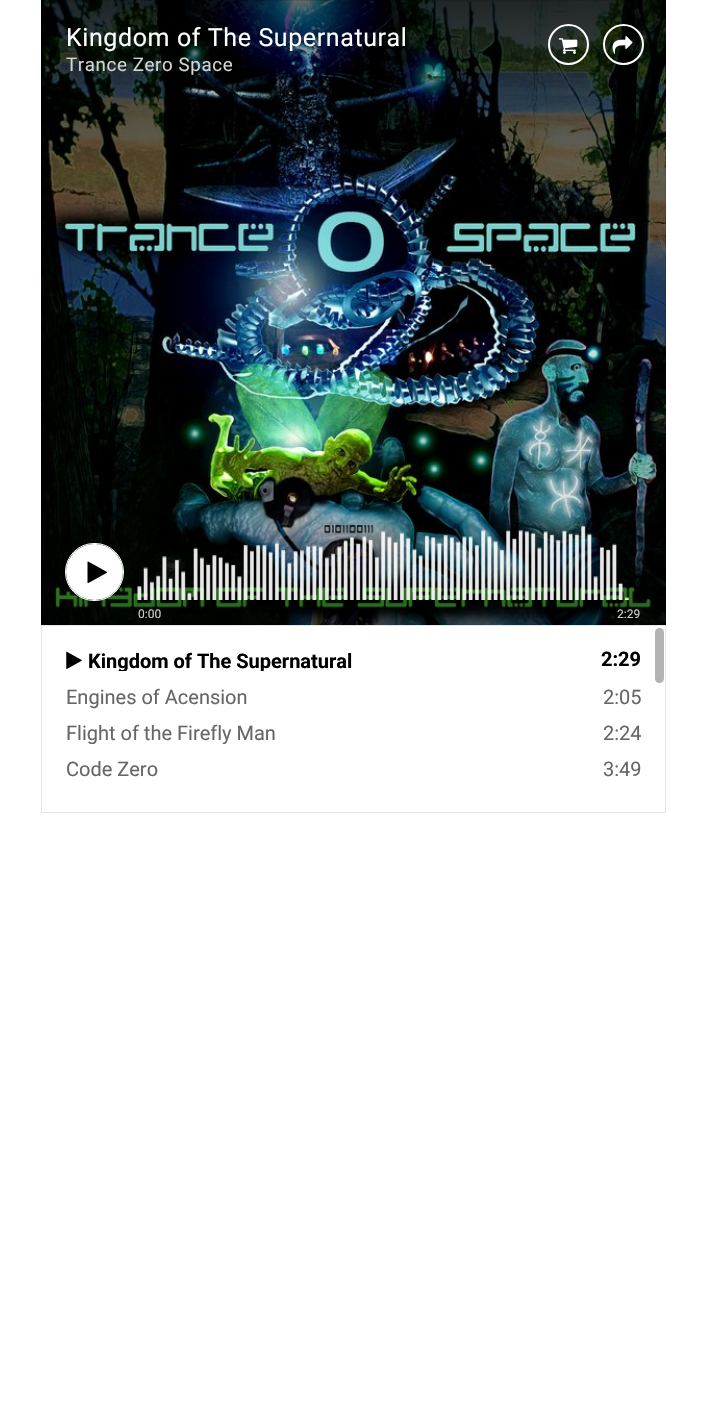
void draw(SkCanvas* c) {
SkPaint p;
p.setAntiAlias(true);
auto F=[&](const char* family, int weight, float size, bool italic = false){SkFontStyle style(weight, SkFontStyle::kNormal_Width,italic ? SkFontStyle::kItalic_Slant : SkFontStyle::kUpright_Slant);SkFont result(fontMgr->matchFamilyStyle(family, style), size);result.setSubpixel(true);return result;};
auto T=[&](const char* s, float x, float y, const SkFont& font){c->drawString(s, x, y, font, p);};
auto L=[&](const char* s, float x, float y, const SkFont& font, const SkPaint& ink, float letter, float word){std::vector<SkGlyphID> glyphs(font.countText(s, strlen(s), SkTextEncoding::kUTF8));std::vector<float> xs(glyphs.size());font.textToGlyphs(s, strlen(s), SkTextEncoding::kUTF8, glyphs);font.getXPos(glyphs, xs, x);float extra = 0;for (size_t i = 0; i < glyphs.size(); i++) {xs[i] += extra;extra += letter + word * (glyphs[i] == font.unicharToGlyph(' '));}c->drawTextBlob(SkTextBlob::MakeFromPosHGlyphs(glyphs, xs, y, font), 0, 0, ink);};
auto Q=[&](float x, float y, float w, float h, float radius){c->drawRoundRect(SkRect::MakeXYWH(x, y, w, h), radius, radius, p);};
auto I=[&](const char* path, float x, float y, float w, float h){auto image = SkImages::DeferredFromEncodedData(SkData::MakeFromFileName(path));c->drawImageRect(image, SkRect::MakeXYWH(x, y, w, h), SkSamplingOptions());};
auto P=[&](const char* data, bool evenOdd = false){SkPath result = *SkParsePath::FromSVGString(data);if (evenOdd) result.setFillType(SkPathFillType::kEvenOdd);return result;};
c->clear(0xffffffff);
I("1.png",41,0,625,625);
p.setColor(0x1a000000);
c->drawPath(P("M41 0h625l-1 1h-623z"),p);
c->drawPath(P("M666 0v625h-1v-624z"),p);
auto f1 = F("Roboto",400,25);
p.setColor(0xffffffff);
L("Kingdom of The Supernatural",66,46,f1,p,.6,0);
auto f2 = F("Roboto",400,18.75);
p.setColor(0xffd1d5d5);
L("Trance Zero Space",66,71,f2,p,.6,0);
p.setStroke(true);
p.setStrokeWidth(2);
p.setColor(0xffffffff);
c->drawCircle(568.5,44.5,19.5,p);
I("2.png",558,38,20,16);
c->drawCircle(623.5,44.5,19.5,p);
I("3.png",612,36,21,18);
I("4.png",137,526,492,74);
p.setStrokeWidth(1);
c->drawRoundRect(SkRect::MakeXYWH(65.5,543.5,58,57),28.5,28.5,p);
p.setStroke(false);
Q(66,544,57,56,28);
I("5.png",87,561,21,23);
auto f3 = F("Roboto",400,12);
p.setColor(0xffcccdcc);
T("0:00",138,618,f3);
T("2:29",617,618,f3);
p.setStroke(true);
p.setColor(0xffe6e6e6);
c->drawRect(SkRect::MakeXYWH(41.5,625.5,624,187),p);
I("6.png",66,651,16,18);
c->save();
c->clipRect(SkRect::MakeXYWH(66,650,535,21));
auto f4 = F("Roboto",700,20);
p.setStroke(false);
p.setColor(0xff000000);
T("Kingdom of The Supernatural",88,668,f4);
c->restore();
T("2:29",601,666,f4);
auto f5 = F("Roboto",400,20);
p.setColor(0xff666666);
T("Engines of Acension",66,704,f5);
T("2:05",603,704,f5);
c->save();
c->clipRect(SkRect::MakeXYWH(66,724,537,20));
T("Flight of the Firefly Man",66,740,f5);
c->restore();
T("2:24",603,740,f5);
T("Code Zero",66,776,f5);
T("3:49",603,776,f5);
p.setColor(0xffb3b3b3);
Q(655,628,9,55,4.5);
}
